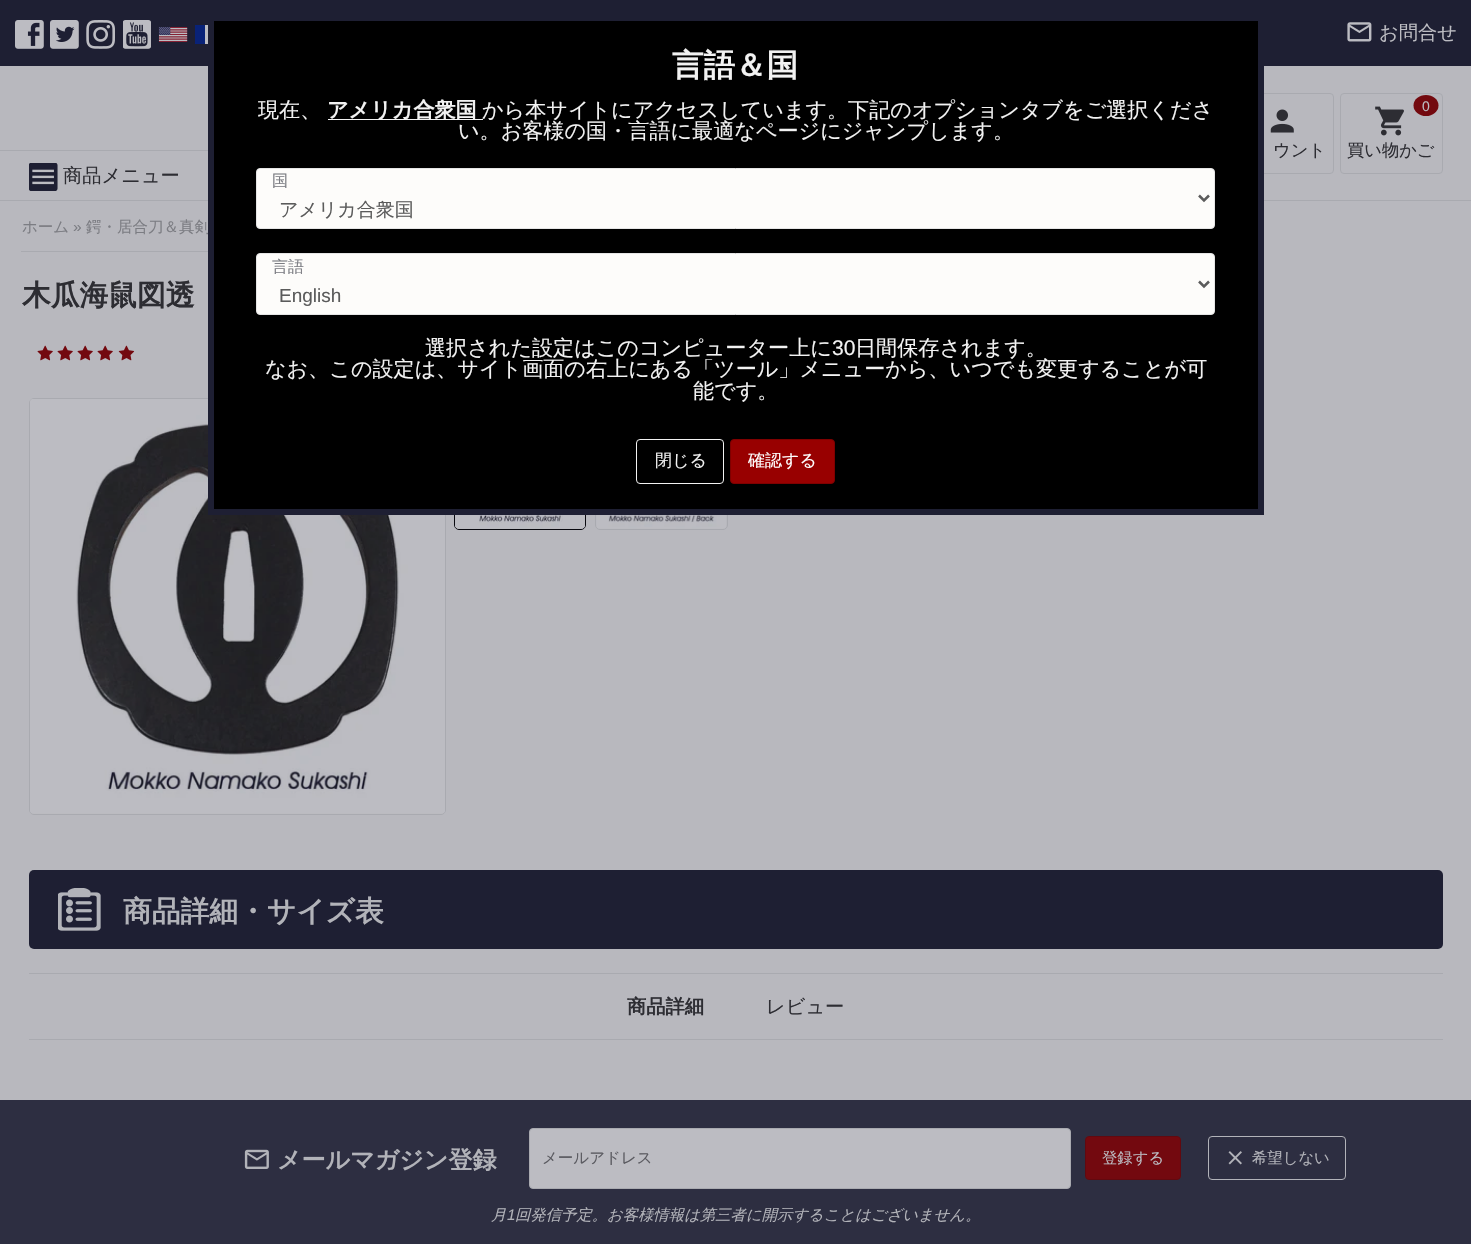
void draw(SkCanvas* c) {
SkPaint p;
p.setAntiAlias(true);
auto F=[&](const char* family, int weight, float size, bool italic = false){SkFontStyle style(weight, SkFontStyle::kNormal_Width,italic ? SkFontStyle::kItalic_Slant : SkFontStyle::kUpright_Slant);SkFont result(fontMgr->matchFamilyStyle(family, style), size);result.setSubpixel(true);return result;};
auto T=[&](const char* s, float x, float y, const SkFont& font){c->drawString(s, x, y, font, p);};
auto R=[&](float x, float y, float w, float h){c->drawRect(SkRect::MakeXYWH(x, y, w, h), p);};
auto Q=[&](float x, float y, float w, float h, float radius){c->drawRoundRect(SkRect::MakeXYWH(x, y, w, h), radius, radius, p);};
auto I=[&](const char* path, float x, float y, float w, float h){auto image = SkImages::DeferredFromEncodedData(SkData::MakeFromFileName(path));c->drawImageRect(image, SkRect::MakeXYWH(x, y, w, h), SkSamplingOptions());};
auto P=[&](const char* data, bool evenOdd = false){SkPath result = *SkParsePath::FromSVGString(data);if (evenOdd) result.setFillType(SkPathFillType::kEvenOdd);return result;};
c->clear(0xffb8b8be);
p.setColor(0xffa9aab0);
R(0,200,1471,1);
p.setColor(0xff1e1f33);
R(0,0,1471,66);
I("1.png",15,20,29,29);
I("2.png",50,20,29,29);
I("3.png",86,20,29,29);
I("4.png",123,20,28,29);
I("5.png",158,27,30,15);
p.setColor(0xffbcbcc2);
R(205,25,3,19);
p.setColor(0xff092278);
R(195,25,10,19);
I("6.png",1347,22,25,20);
auto f1 = F("WenQuanYi Zen Hei",500,19.25);
p.setColor(0xffbcbcc2);
T("お問合せ",1379,39,f1);
p.setStroke(true);
p.setStrokeWidth(1);
p.setColor(0xffa9aab0);
c->drawRoundRect(SkRect::MakeXYWH(1230.5,93.5,103,80),3.5,3.5,p);
I("7.png",1270,109,24,24);
auto f2 = F("WenQuanYi Zen Hei",500,17.25);
p.setStroke(false);
p.setColor(0xff2d2d33);
T("ウント",1273,156,f2);
p.setStroke(true);
p.setColor(0xffa9aab0);
c->drawRoundRect(SkRect::MakeXYWH(1340.5,93.5,102,80),3.5,3.5,p);
I("8.png",1375,106,29,30);
p.setStroke(false);
p.setColor(0xff73090f);
c->drawOval(SkRect::MakeXYWH(1413.5,95,25,21),p);
auto f3 = F("Liberation Sans",400,14);
p.setColor(0xffbcbcc2);
T("0",1422,111,f3);
p.setColor(0xff2d2d33);
T("買い物かご",1347,156,f2);
p.setColor(0xffa9aab0);
c->drawPath(P("M0 150h365c2 0 4 2 4 4v46h-365c-2 0-4-2-4-4zm0 1h365c1 0 3 1 3 3v46h-364c-2 0-4-2-4-4z",true),p);
I("9.png",29,163,29,28);
p.setColor(0xff2d2d33);
T("商品メニュー",63,182,f1);
p.setColor(0xffa9aab0);
R(21,251,187,1);
auto f4 = F("WenQuanYi Zen Hei",500,15.5);
p.setColor(0xff7c7d83);
T("ホーム",22,232,f4);
auto f5 = F("Liberation Sans",400,15.5);
T("»",73,232,f5);
T("鍔・居合刀＆真剣",86,232,f4);
auto f6 = F("WenQuanYi Zen Hei",700,28.75);
p.setColor(0xff2d2d33);
T("木瓜海鼠図透",22,305,f6);
I("10.png",37,345,16,16);
I("10.png",57,345,16,16);
I("10.png",77,345,16,16);
I("10.png",97,345,16,16);
I("11.png",118,345,17,16);
p.setStroke(true);
p.setColor(0xffa9aab0);
c->drawRoundRect(SkRect::MakeXYWH(29.5,398.5,416,416),4.5,4.5,p);
I("12.png",30,399,415,415);
p.setColor(0xff09090f);
c->drawRoundRect(SkRect::MakeXYWH(454.5,398.5,131,131),4.5,4.5,p);
I("13.png",455,515,130,14);
p.setColor(0xffa9aab0);
c->drawRoundRect(SkRect::MakeXYWH(595.5,398.5,132,131),4.5,4.5,p);
I("14.png",596,515,130,14);
p.setStroke(false);
p.setColor(0xff1e1f33);
Q(29,870,1414,79,5);
I("15.png",58,888,43,43);
p.setColor(0xffb2b3b9);
T("商品詳細・サイズ表",123,921,f6);
p.setColor(0xffa9aab0);
R(29,973,1414,1);
R(29,1039,1414,1);
auto f7 = F("WenQuanYi Zen Hei",700,19.25);
p.setColor(0xff2d2d33);
T("商品詳細",627,1013,f7);
T("レビュー",766,1013,f1);
p.setColor(0xff000000);
c->drawRect(SkRect::MakeXYWH(211,18,1050,494),p);
p.setStroke(true);
p.setStrokeWidth(6);
p.setColor(0xff1e1f33);
c->drawRect(SkRect::MakeXYWH(211,18,1050,494),p);
auto f8 = F("WenQuanYi Zen Hei",700,31.5);
p.setStroke(false);
p.setColor(0xfff2f2f2);
T("言語＆国",672,76,f8);
auto f9 = F("WenQuanYi Zen Hei",500,21.1);
T("現在、",258,117,f9);
R(328,119,155,1);
auto f10 = F("WenQuanYi Zen Hei",700,21.1);
T("アメリカ合衆国",327,117,f10);
T("から本サイトにアクセスしています。下記のオプションタブをご選択くださ",482,117,f9);
T("い。お客様の国・言語に最適なページにジャンプします。",458,138,f9);
p.setColor(0xfffdfcfa);
c->drawRoundRect(SkRect::MakeXYWH(256.5,168.5,958,60),3.5,3.5,p);
p.setStroke(true);
p.setStrokeWidth(1);
p.setColor(0xffe5e5e5);
c->drawRoundRect(SkRect::MakeXYWH(256.5,168.5,958,60),3.5,3.5,p);
auto f11 = F("WenQuanYi Zen Hei",500,16);
p.setStroke(false);
p.setColor(0xff7c7d83);
T("国",272,186,f11);
p.setStroke(true);
p.setStrokeWidth(2.5);
p.setColor(0xff5b5b5b);
c->drawPath(P("M1199 195.5l5 5l5-5"),p);
auto f12 = F("WenQuanYi Zen Hei",500,19);
p.setStroke(false);
T("アメリカ合衆国",279,216,f12);
p.setColor(0xfffdfcfa);
c->drawRoundRect(SkRect::MakeXYWH(256.5,253.5,958,61),3.5,3.5,p);
p.setStroke(true);
p.setStrokeWidth(1);
p.setColor(0xffe5e5e5);
c->drawRoundRect(SkRect::MakeXYWH(256.5,253.5,958,61),3.5,3.5,p);
p.setStroke(false);
p.setColor(0xff7c7d83);
T("言語",272,272,f11);
p.setStroke(true);
p.setStrokeWidth(2.5);
p.setColor(0xff5b5b5b);
c->drawPath(P("M1199 281.5l5 5l5-5"),p);
auto f13 = F("Liberation Sans",400,19);
p.setStroke(false);
T("English",279,302,f13);
p.setColor(0xfff2f2f2);
T("選択された設定はこのコンピューター上に",425,355,f9);
auto f14 = F("Liberation Sans",400,21.1);
T("30",832,355,f14);
T("日間保存されます。",855,355,f9);
T("なお、この設定は、サイト画面の右上にある「ツール」メニューから、いつでも変更することが可",265,376,f9);
T("能です。",693,398,f9);
p.setStroke(true);
p.setStrokeWidth(1);
c->drawRoundRect(SkRect::MakeXYWH(636.5,439.5,87,44),3.5,3.5,p);
auto f15 = F("WenQuanYi Zen Hei",500,17);
p.setStroke(false);
T("閉じる",655,466,f15);
p.setColor(0xff980000);
c->drawRoundRect(SkRect::MakeXYWH(730.5,439.5,104,44),3.5,3.5,p);
p.setStroke(true);
p.setColor(0xff7f0000);
c->drawRoundRect(SkRect::MakeXYWH(730.5,439.5,104,44),3.5,3.5,p);
p.setStroke(false);
p.setColor(0xffffffff);
T("確認する",748,466,f15);
p.setColor(0xe61e1f33);
R(0,1100,1471,144);
I("16.png",244,1149,25,20);
auto f16 = F("WenQuanYi Zen Hei",700,24);
p.setColor(0xffb2b3b9);
T("メールマガジン登録",277,1168,f16);
p.setColor(0xffbcbcc2);
c->drawRoundRect(SkRect::MakeXYWH(529.5,1128.5,541,60),3.5,3.5,p);
p.setStroke(true);
p.setColor(0xffa9aab0);
c->drawRoundRect(SkRect::MakeXYWH(529.5,1128.5,541,60),3.5,3.5,p);
p.setStroke(false);
p.setColor(0xff5b5b61);
T("メールアドレス",542,1163,f4);
p.setColor(0xff73090f);
c->drawRoundRect(SkRect::MakeXYWH(1085.5,1136.5,95,43),3.5,3.5,p);
p.setStroke(true);
p.setColor(0xff62090f);
c->drawRoundRect(SkRect::MakeXYWH(1085.5,1136.5,95,43),3.5,3.5,p);
auto f17 = F("WenQuanYi Zen Hei",500,15.35);
p.setStroke(false);
p.setColor(0xffbcbcc2);
T("登録する",1102,1163,f17);
p.setStroke(true);
p.setColor(0xffb2b3b9);
c->drawRoundRect(SkRect::MakeXYWH(1208.5,1136.5,137,43),3.5,3.5,p);
I("17.png",1228,1151,14,14);
p.setStroke(false);
T("希望しない",1252,1163,f17);
auto f18 = F("WenQuanYi Zen Hei",500,15.35,true);
T("月",491,1220,f18);
auto f19 = F("Liberation Sans",400,15.35,true);
T("1",507,1220,f19);
T("回発信予定。お客様情報は第三者に開示することはございません。",515,1220,f18);
}
